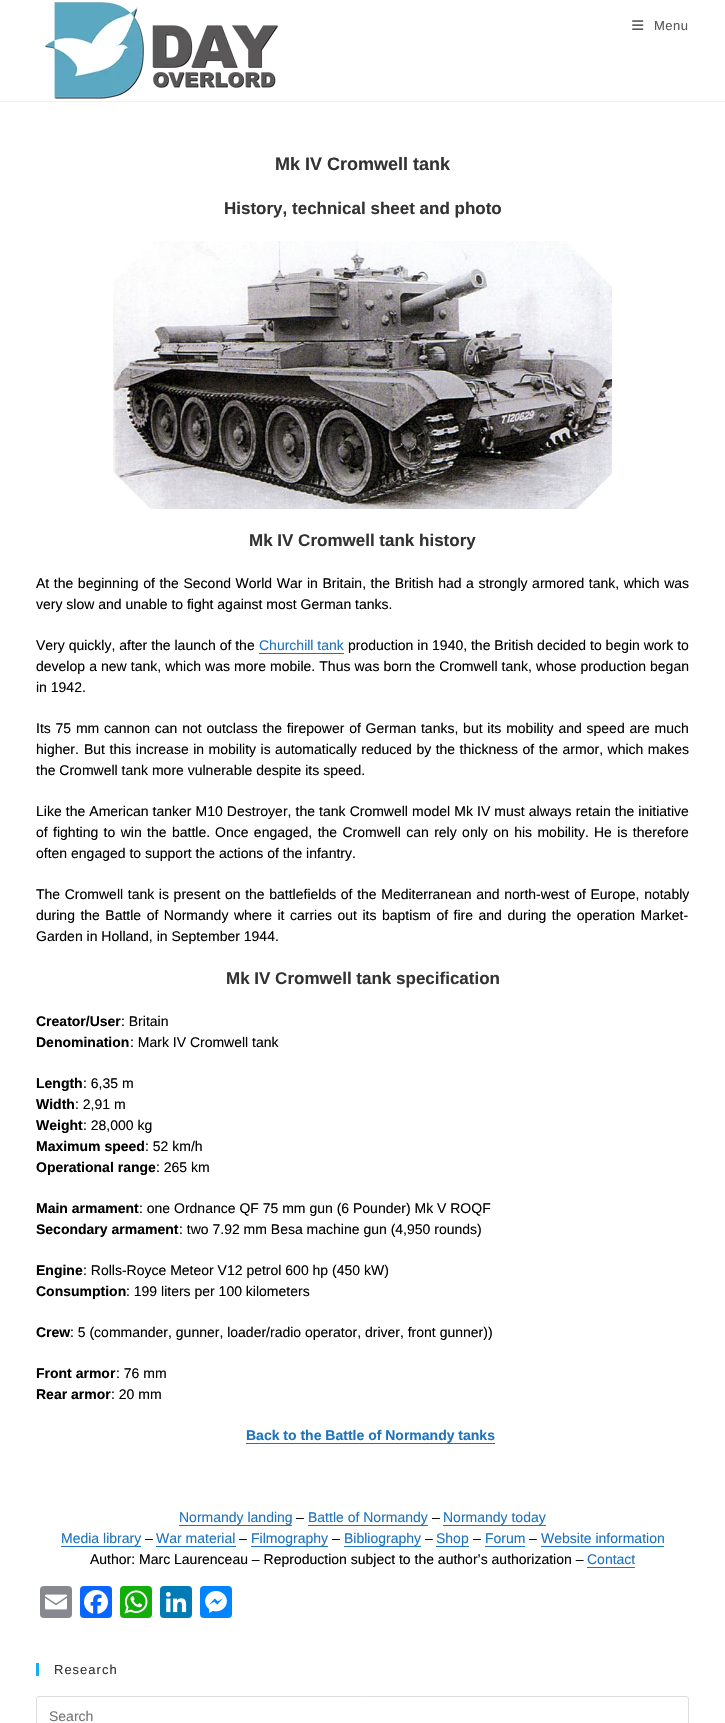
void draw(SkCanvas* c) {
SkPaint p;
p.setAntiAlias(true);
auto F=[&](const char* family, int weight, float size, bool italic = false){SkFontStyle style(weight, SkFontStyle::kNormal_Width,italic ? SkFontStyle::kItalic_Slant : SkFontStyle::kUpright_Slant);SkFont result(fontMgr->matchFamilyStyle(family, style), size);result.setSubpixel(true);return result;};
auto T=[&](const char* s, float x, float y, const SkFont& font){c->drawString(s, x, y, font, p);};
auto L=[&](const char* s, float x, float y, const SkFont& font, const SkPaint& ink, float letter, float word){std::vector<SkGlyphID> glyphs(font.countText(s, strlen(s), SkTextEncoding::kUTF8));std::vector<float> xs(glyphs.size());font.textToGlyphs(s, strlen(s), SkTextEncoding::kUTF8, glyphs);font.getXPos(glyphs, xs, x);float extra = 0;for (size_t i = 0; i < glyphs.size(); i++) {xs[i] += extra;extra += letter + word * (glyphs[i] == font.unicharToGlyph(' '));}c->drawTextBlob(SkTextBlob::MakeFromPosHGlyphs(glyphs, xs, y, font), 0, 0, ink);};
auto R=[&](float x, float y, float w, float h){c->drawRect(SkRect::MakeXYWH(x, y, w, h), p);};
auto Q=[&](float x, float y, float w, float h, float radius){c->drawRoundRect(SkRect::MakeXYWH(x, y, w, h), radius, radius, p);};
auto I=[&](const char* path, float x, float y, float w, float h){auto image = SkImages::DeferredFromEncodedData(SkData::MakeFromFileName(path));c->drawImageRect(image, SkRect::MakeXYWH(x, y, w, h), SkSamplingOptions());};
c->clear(0xffffffff);
p.setColor(0xfff1f1f1);
R(0,101,725,1);
I("1.png",44,2,235,97);
I("2.png",632,20,12,10);
auto f1 = F("Liberation Sans",400,13);
p.setColor(0xff555555);
L("Menu",654,30,f1,p,.5,0);
auto f2 = F("Liberation Sans",700,18);
p.setColor(0xff333333);
T("Mk IV Cromwell tank",275,170,f2);
auto f3 = F("Liberation Sans",700,17);
T("History, technical sheet and photo",224,214,f3);
I("3.png",113,241,499,268);
T("Mk IV Cromwell tank history",249,546,f3);
auto f4 = F("Liberation Sans",400,14);
p.setColor(0xff000000);
L("At the beginning of the Second World War in Britain, the British had a strongly armored tank, which was",36,588,f4,p,0,.7);
T("very slow and unable to fight against most German tanks.",36,609,f4);
T("Very quickly, after the launch of the",36,650,f4);
p.setColor(0xff1e73be);
T("Churchill tank",259,650,f4);
R(259,653,85,1);
p.setColor(0xff000000);
T("production in 1940, the British decided to begin work to",348,650,f4);
L("develop a new tank, which was more mobile. Thus was born the Cromwell tank, whose production began",36,671,f4,p,0,.2);
T("in 1942.",36,692,f4);
L("Its 75 mm cannon can not outclass the firepower of German tanks, but its mobility and speed are much",36,733,f4,p,0,.9);
T("higher.",36,754,f4);
L("But this increase in mobility is automatically reduced by the thickness of the armor, which makes",84,754,f4,p,0,.6);
T("the Cromwell tank more vulnerable despite its speed.",36,775,f4);
L("Like the American tanker M10 Destroyer, the tank Cromwell model Mk IV must always retain the initiative",36,816,f4,p,0,.2);
L("of fighting to win the battle.",36,837,f4,p,0,1.5);
L("Once engaged, the Cromwell can rely only on his mobility.",215,837,f4,p,0,1.5);
L("He is therefore",594,837,f4,p,0,1.5);
T("often engaged to support the actions of the infantry.",36,858,f4);
L("The Cromwell tank is present on the battlefields of the Mediterranean and north-west of Europe, notably",36,899,f4,p,0,.75);
L("during the Battle of Normandy where it carries out its baptism of fire and during the operation Market-",36,920,f4,p,0,1.6);
T("Garden in Holland, in September 1944.",36,941,f4);
p.setColor(0xff333333);
T("Mk IV Cromwell tank specification",226,984,f3);
auto f5 = F("Liberation Sans",700,14);
p.setColor(0xff000000);
T("Creator/User",36,1026,f5);
T(": Britain",121,1026,f4);
T("Denomination",36,1047,f5);
T(": Mark IV Cromwell tank",130,1047,f4);
T("Length",36,1088,f5);
T(": 6,35 m",83,1088,f4);
T("Width",36,1109,f5);
T(": 2,91 m",75,1109,f4);
T("Weight",36,1130,f5);
T(": 28,000 kg",83,1130,f4);
T("Maximum speed",36,1151,f5);
T(": 52 km/h",145,1151,f4);
T("Operational range",36,1172,f5);
T(": 265 km",156,1172,f4);
T("Main armament",36,1213,f5);
T(": one Ordnance QF 75 mm gun (6 Pounder) Mk V ROQF",139,1213,f4);
T("Secondary armament",36,1234,f5);
T(": two 7.92 mm Besa machine gun (4,950 rounds)",179,1234,f4);
T("Engine",36,1275,f5);
T(": Rolls-Royce Meteor V12 petrol 600 hp (450 kW)",83,1275,f4);
T("Consumption",36,1296,f5);
T(": 199 liters per 100 kilometers",126,1296,f4);
T("Crew",36,1337,f5);
T(": 5 (commander, gunner, loader/radio operator, driver, front gunner))",70,1337,f4);
T("Front armor",36,1378,f5);
T(": 76 mm",116,1378,f4);
T("Rear armor",36,1399,f5);
T(": 20 mm",111,1399,f4);
p.setColor(0xff1e73be);
T("Back to the Battle of Normandy tanks",246,1440,f5);
R(246,1443,249,1);
T("Normandy landing",179,1522,f4);
R(179,1525,113,1);
p.setColor(0xff000000);
T("–",296,1522,f4);
p.setColor(0xff1e73be);
T("Battle of Normandy",308,1522,f4);
R(308,1525,120,1);
p.setColor(0xff000000);
T("–",432,1522,f4);
p.setColor(0xff1e73be);
T("Normandy today",443,1522,f4);
R(443,1525,103,1);
T("Media library",61,1543,f4);
R(61,1546,80,1);
p.setColor(0xff000000);
T("–",145,1543,f4);
p.setColor(0xff1e73be);
T("War material",156,1543,f4);
R(156,1546,80,1);
p.setColor(0xff000000);
T("–",239,1543,f4);
p.setColor(0xff1e73be);
T("Filmography",251,1543,f4);
R(251,1546,77,1);
p.setColor(0xff000000);
T("–",332,1543,f4);
p.setColor(0xff1e73be);
T("Bibliography",344,1543,f4);
R(344,1546,77,1);
p.setColor(0xff000000);
T("–",425,1543,f4);
p.setColor(0xff1e73be);
T("Shop",436,1543,f4);
R(436,1546,33,1);
p.setColor(0xff000000);
T("–",473,1543,f4);
p.setColor(0xff1e73be);
T("Forum",485,1543,f4);
R(485,1546,40,1);
p.setColor(0xff000000);
T("–",529,1543,f4);
p.setColor(0xff1e73be);
T("Website information",541,1543,f4);
R(541,1546,123,1);
p.setColor(0xff000000);
T("Author: Marc Laurenceau – Reproduction subject to the author’s authorization –",90,1564,f4);
p.setColor(0xff1e73be);
T("Contact",587,1564,f4);
R(587,1567,48,1);
p.setColor(0xff888990);
Q(40,1586,32,32,4);
I("4.png",45,1594,22,16);
p.setColor(0xff0866ff);
Q(80,1586,32,32,4);
I("5.png",84,1590,24,24);
p.setColor(0xff12af0a);
Q(120,1586,32,32,4);
I("6.png",124,1590,24,24);
p.setColor(0xff007bb5);
Q(160,1586,32,32,4);
I("7.png",165,1591,22,22);
p.setColor(0xff0084ff);
Q(200,1586,32,32,4);
I("8.png",205,1591,22,22);
p.setColor(0xff13aff0);
R(36,1663,3,13);
p.setColor(0xff333333);
L("Research",54,1674,f1,p,1,0);
p.setStroke(true);
p.setStrokeWidth(1);
p.setColor(0xffdddddd);
c->drawRoundRect(SkRect::MakeXYWH(36.5,1696.5,652,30),2.5,2.5,p);
p.setStroke(false);
p.setColor(0xff757575);
T("Search",49,1721,f4);
}
